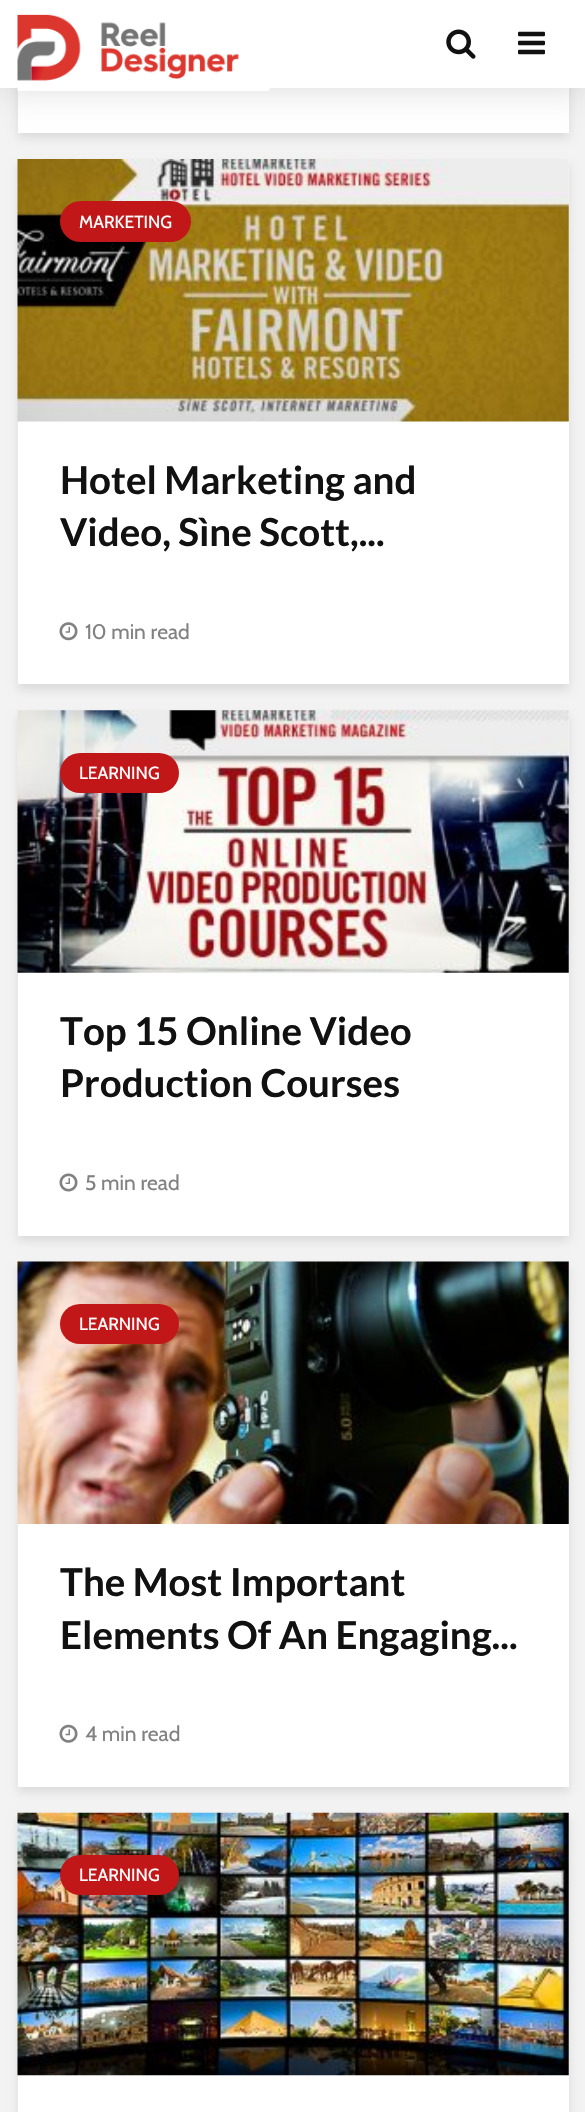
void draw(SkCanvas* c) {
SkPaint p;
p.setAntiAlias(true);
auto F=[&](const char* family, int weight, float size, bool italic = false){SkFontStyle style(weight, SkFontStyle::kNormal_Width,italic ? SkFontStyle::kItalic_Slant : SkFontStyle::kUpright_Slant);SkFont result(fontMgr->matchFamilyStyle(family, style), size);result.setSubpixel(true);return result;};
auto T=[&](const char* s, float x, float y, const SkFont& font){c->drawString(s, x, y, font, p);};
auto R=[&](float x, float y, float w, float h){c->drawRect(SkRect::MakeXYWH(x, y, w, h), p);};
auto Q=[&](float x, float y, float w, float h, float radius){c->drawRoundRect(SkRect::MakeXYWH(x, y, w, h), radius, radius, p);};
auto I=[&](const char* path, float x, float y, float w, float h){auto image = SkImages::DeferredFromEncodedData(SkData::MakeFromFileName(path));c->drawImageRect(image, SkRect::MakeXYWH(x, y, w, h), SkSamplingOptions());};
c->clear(0xfff3f3f3);
p.setColor(0x1a000101);
p.setMaskFilter(SkMaskFilter::MakeBlur(kNormal_SkBlurStyle, 4.5));
c->drawRect(SkRect::MakeXYWH(18,-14,551,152),p);
p.setMaskFilter(nullptr);
p.setColor(0xffffffff);
R(18,88,551,45);
p.setColor(0x26000000);
p.setMaskFilter(SkMaskFilter::MakeBlur(kNormal_SkBlurStyle, 17.5));
c->drawRect(SkRect::MakeXYWH(0,0,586,88),p);
p.setMaskFilter(nullptr);
p.setColor(0xffffffff);
R(0,0,585,88);
I("1.png",17,14,253,77);
I("2.png",446,29,30,30);
I("3.png",518,31,27,24);
p.setColor(0x1a000101);
p.setMaskFilter(SkMaskFilter::MakeBlur(kNormal_SkBlurStyle, 4.5));
c->drawRect(SkRect::MakeXYWH(18,165,551,525),p);
p.setMaskFilter(nullptr);
p.setColor(0xffffffff);
R(18,159,551,525);
I("4.png",17,159,552,263);
p.setColor(0xffc11718);
Q(60,201,131,41,20.5);
auto f1 = F("Cabin",400,17.5);
p.setColor(0xffffffff);
T("MARKETING",79,228,f1);
auto f2 = F("Lato",700,38.5);
p.setColor(0xff111111);
T("Hotel Marketing and",60,494,f2);
T("Video, Sìne Scott,...",60,546,f2);
I("5.png",59,622,19,19);
auto f3 = F("Cabin",400,21);
p.setColor(0xff818181);
T("10 min read",85,639,f3);
p.setColor(0x1a000101);
p.setMaskFilter(SkMaskFilter::MakeBlur(kNormal_SkBlurStyle, 4.5));
c->drawRect(SkRect::MakeXYWH(18,716,551,525),p);
p.setMaskFilter(nullptr);
p.setColor(0xffffffff);
R(18,711,551,525);
I("6.png",17,710,552,263);
p.setColor(0xffc11718);
Q(60,753,119,40,20);
p.setColor(0xffffffff);
T("LEARNING",79,779,f1);
p.setColor(0xff111111);
T("Top 15 Online Video",60,1045,f2);
T("Production Courses",60,1097,f2);
I("7.png",59,1173,19,19);
p.setColor(0xff818181);
T("5 min read",85,1190,f3);
p.setColor(0x1a000101);
p.setMaskFilter(SkMaskFilter::MakeBlur(kNormal_SkBlurStyle, 4.5));
c->drawRect(SkRect::MakeXYWH(18,1267,551,525),p);
p.setMaskFilter(nullptr);
p.setColor(0xffffffff);
R(18,1262,551,525);
I("8.png",17,1261,552,263);
p.setColor(0xffc11718);
Q(60,1304,119,40,20);
p.setColor(0xffffffff);
T("LEARNING",79,1330,f1);
p.setColor(0xff111111);
T("The Most Important",60,1596,f2);
T("Elements Of An Engaging...",60,1649,f2);
I("9.png",59,1724,19,19);
p.setColor(0xff818181);
T("4 min read",85,1741,f3);
p.setColor(0x1a000101);
p.setMaskFilter(SkMaskFilter::MakeBlur(kNormal_SkBlurStyle, 4.5));
c->drawRect(SkRect::MakeXYWH(18,1818,551,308),p);
p.setMaskFilter(nullptr);
p.setColor(0xffffffff);
R(18,1813,551,299);
I("10.png",17,1812,552,264);
p.setColor(0xffc11718);
Q(60,1855,119,40,20);
p.setColor(0xffffffff);
T("LEARNING",79,1881,f1);
}
